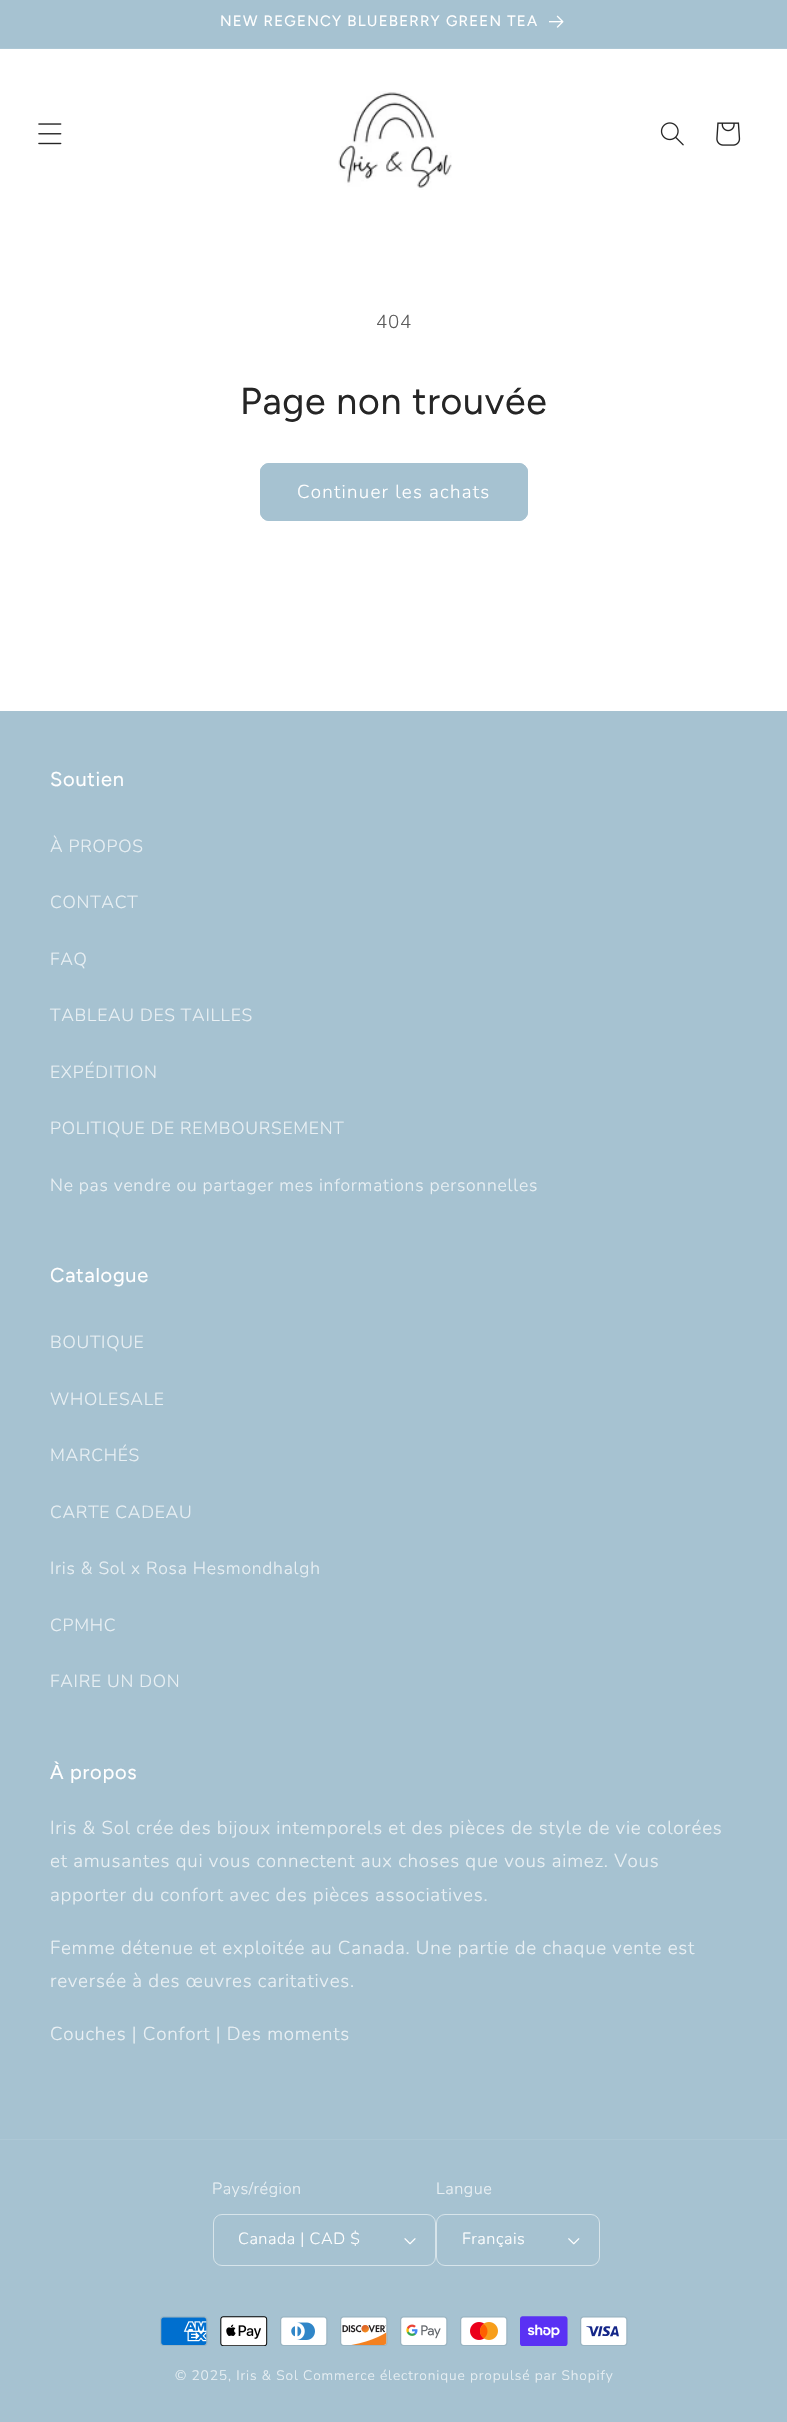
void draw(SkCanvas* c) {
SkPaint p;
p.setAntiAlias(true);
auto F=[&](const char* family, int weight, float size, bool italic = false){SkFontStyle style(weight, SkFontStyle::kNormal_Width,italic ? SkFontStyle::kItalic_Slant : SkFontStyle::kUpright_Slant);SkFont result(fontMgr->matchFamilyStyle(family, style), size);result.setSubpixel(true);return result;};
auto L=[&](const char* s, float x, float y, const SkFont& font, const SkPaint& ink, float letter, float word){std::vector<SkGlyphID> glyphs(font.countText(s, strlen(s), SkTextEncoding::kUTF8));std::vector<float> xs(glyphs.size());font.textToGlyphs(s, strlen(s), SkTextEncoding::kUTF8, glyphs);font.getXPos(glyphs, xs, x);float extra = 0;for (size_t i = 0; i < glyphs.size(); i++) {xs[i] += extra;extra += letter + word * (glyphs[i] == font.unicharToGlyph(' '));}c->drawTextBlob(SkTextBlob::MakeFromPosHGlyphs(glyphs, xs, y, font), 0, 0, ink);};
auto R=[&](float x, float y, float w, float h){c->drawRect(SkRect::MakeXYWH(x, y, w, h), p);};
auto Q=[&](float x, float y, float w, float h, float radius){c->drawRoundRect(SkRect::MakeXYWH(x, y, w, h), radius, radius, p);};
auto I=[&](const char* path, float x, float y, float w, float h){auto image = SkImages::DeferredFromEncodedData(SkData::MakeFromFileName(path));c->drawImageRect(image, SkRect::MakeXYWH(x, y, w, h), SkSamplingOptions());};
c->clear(0xffffffff);
p.setColor(0xffa6c2d1);
R(0,0,787,48);
p.setColor(0xffadc7d5);
R(0,48,787,1);
auto f1 = F("Figtree",400,15);
p.setColor(0xffffffff);
L("NEW REGENCY BLUEBERRY GREEN TEA",220,26,f1,p,1.25,0);
I("1.png",549,15,15,13);
I("2.png",38,123,24,22);
I("3.png",338,91,114,99);
I("4.png",660,122,24,24);
I("5.png",716,122,25,24);
auto f2 = F("Nunito",300,18.75);
p.setColor(0xff5c5c5c);
L("404",376,328,f2,p,.75,0);
auto f3 = F("Figtree",400,37.5);
p.setColor(0xff252525);
L("Page non trouvée",240,414,f3,p,.75,0);
p.setColor(0xffa6c2d1);
Q(260,463,268,58,9);
p.setStroke(true);
p.setStrokeWidth(1);
c->drawRoundRect(SkRect::MakeXYWH(260.5,463.5,267,57),8.5,8.5,p);
p.setStroke(false);
p.setColor(0xffffffff);
L("Continuer les achats",297,498,f2,p,1.25,0);
p.setColor(0xffa6c2d1);
R(0,711,787,1711);
auto f4 = F("Figtree",400,20);
p.setColor(0xffffffff);
L("Soutien",50,786,f4,p,.75,0);
auto f5 = F("Nunito",300,17.5);
p.setColor(0xffe9f0f4);
L("À PROPOS",50,852,f5,p,.75,0);
L("CONTACT",50,908,f5,p,.75,0);
L("FAQ",50,965,f5,p,.75,0);
L("TABLEAU DES TAILLES",50,1021,f5,p,.75,0);
L("EXPÉDITION",50,1078,f5,p,.75,0);
L("POLITIQUE DE REMBOURSEMENT",50,1134,f5,p,.75,0);
L("Ne pas vendre ou partager mes informations personnelles",50,1191,f5,p,.75,0);
p.setColor(0xffffffff);
L("Catalogue",50,1282,f4,p,.75,0);
p.setColor(0xffe9f0f4);
L("BOUTIQUE",50,1348,f5,p,.75,0);
L("WHOLESALE",50,1405,f5,p,.75,0);
L("MARCHÉS",50,1461,f5,p,.75,0);
L("CARTE CADEAU",50,1518,f5,p,.75,0);
L("Iris & Sol x Rosa Hesmondhalgh",50,1574,f5,p,.75,0);
L("CPMHC",50,1631,f5,p,.75,0);
L("FAIRE UN DON",50,1687,f5,p,.75,0);
p.setColor(0xffffffff);
L("À propos",50,1779,f4,p,.75,0);
p.setColor(0xffe9f0f4);
L("Iris & Sol crée des bijoux intemporels et des pièces de style de vie colorées",50,1834,f2,p,.75,0);
L("et amusantes qui vous connectent aux choses que vous aimez. Vous",50,1867,f2,p,.75,0);
L("apporter du confort avec des pièces associatives.",50,1901,f2,p,.75,0);
L("Femme détenue et exploitée au Canada. Une partie de chaque vente est",50,1954,f2,p,.75,0);
L("reversée à des œuvres caritatives.",50,1987,f2,p,.75,0);
L("Couches | Confort | Des moments",50,2040,f2,p,.75,0);
p.setColor(0xffadc7d5);
R(0,2139,787,1);
auto f6 = F("Nunito",300,16.25);
p.setColor(0xffe9f0f4);
L("Pays/région",212,2194,f6,p,.5,0);
I("6.png",404,2238,12,7);
p.setStroke(true);
p.setColor(0xffd7e4ea);
c->drawRoundRect(SkRect::MakeXYWH(213.5,2214.5,222,51),8.5,8.5,p);
p.setStroke(false);
p.setColor(0xffffffff);
L("Canada | CAD $",238,2244,f6,p,.5,0);
p.setColor(0xffe9f0f4);
L("Langue",436,2194,f6,p,.5,0);
I("7.png",568,2238,12,7);
p.setStroke(true);
p.setColor(0xffd7e4ea);
c->drawRoundRect(SkRect::MakeXYWH(436.5,2214.5,163,51),8.5,8.5,p);
p.setStroke(false);
p.setColor(0xffffffff);
L("Français",462,2244,f6,p,.5,0);
I("8.png",160,2316,48,30);
I("9.png",220,2316,48,30);
I("10.png",280,2316,48,30);
I("11.png",340,2316,48,30);
I("12.png",400,2316,48,30);
I("13.png",460,2316,48,30);
I("14.png",520,2316,48,30);
I("15.png",580,2316,48,30);
auto f7 = F("Nunito",300,13.75);
p.setColor(0xffe9f0f4);
L("© 2025, Iris & Sol Commerce électronique propulsé par Shopify",175,2380,f7,p,.88,0);
}
